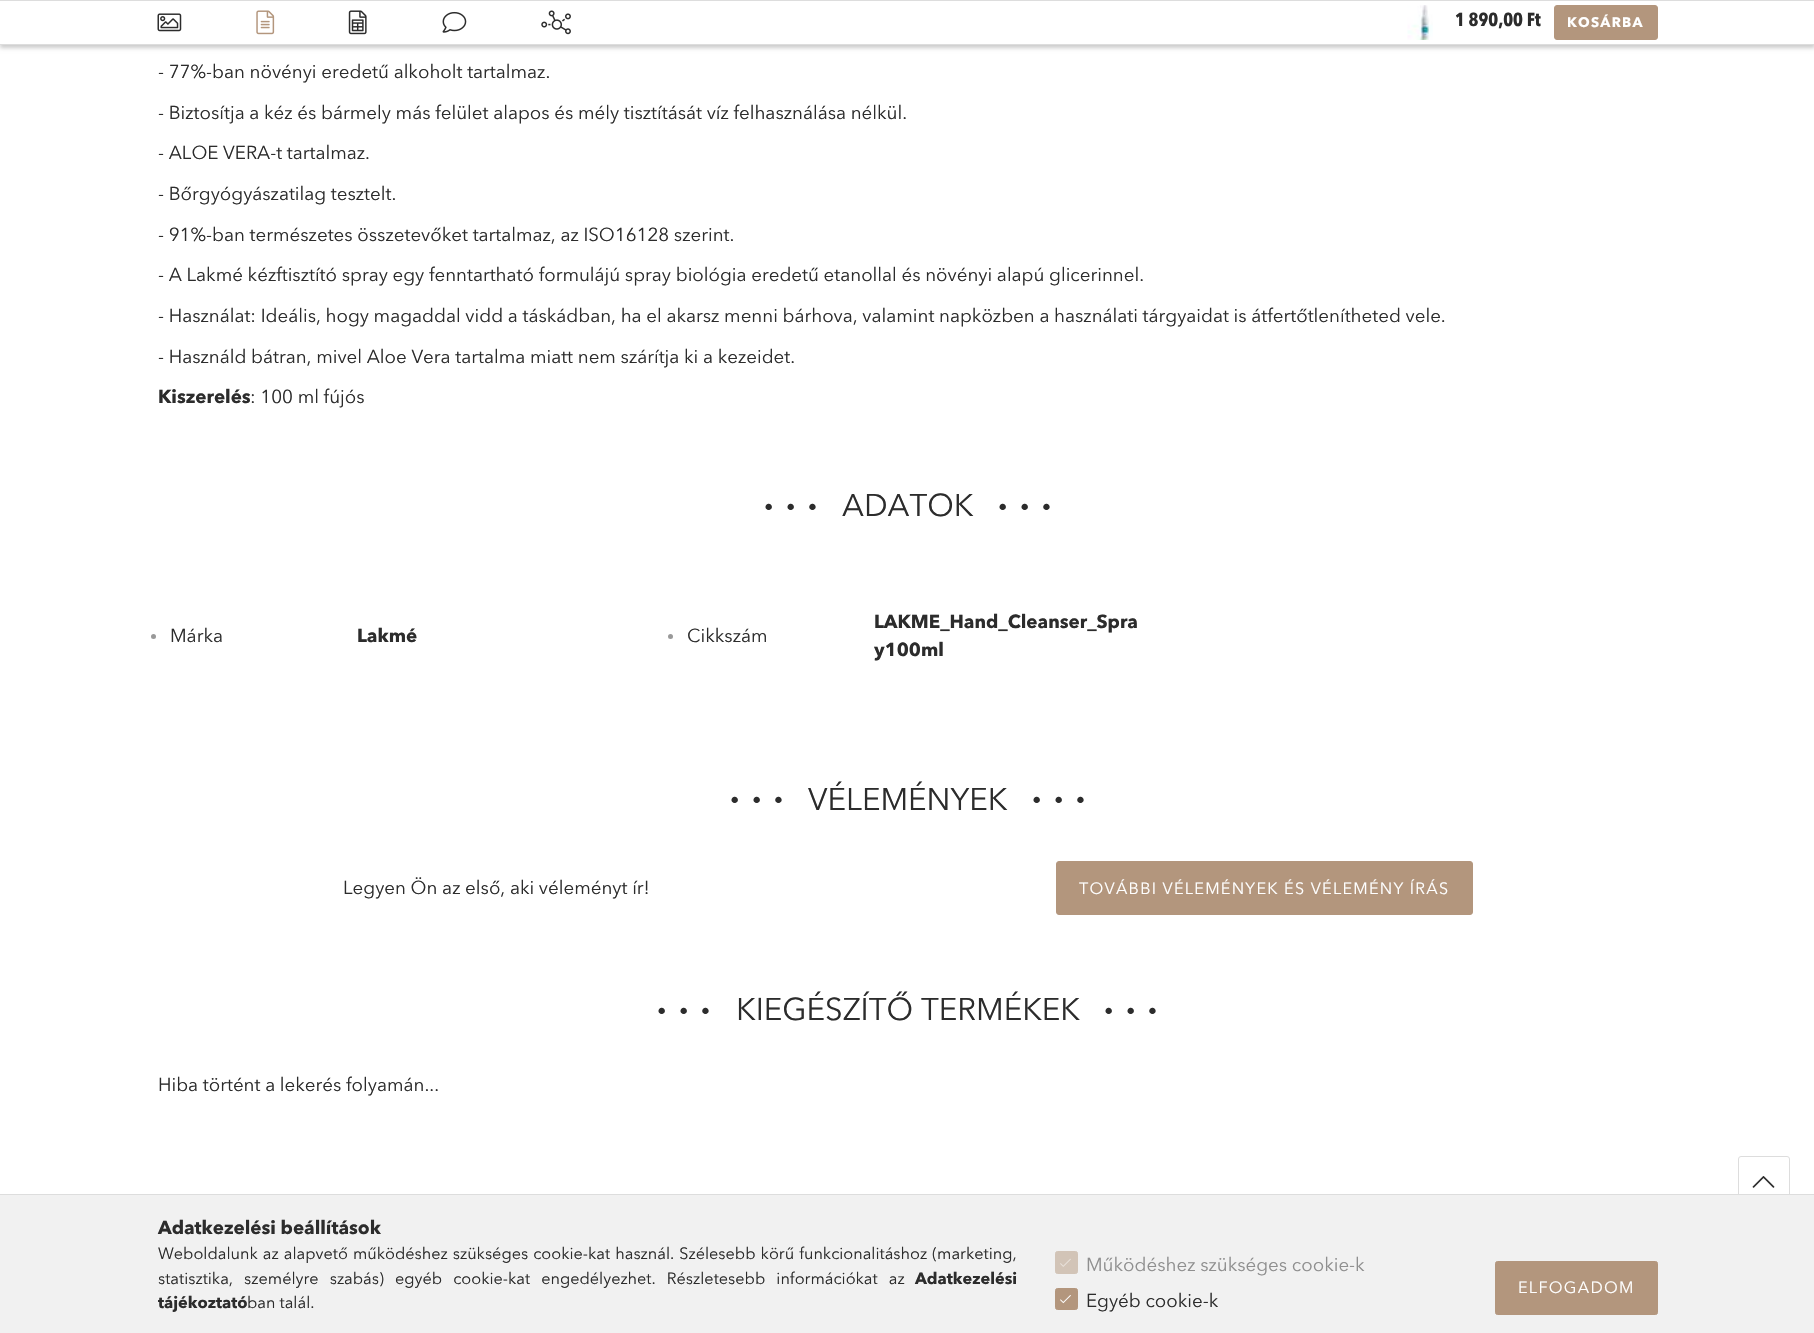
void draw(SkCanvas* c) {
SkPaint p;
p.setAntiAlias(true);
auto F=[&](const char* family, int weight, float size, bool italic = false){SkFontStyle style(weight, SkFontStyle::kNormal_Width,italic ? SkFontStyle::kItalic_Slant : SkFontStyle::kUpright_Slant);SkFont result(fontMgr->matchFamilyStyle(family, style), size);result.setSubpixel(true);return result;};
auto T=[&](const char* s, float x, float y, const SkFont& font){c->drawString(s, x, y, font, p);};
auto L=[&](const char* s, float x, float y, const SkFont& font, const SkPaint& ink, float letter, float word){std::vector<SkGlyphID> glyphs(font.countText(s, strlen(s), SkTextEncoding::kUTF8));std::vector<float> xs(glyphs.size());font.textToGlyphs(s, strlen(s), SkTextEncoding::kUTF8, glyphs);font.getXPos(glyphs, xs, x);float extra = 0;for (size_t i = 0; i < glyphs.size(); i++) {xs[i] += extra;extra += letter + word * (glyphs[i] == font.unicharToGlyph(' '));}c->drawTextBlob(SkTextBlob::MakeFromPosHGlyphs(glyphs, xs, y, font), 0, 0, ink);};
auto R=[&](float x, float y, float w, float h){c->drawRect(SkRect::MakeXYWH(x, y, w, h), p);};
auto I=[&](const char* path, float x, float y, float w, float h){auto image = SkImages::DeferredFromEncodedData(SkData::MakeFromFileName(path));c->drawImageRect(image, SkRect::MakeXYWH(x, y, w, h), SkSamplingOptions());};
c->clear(0xffffffff);
p.setColor(0x33000000);
p.setMaskFilter(SkMaskFilter::MakeBlur(kNormal_SkBlurStyle, 2));
c->drawRect(SkRect::MakeXYWH(0,3,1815,45),p);
p.setMaskFilter(nullptr);
p.setColor(0xffffffff);
R(0,1,1814,43);
p.setColor(0xffdddddd);
R(0,0,1814,1);
R(0,44,1814,1);
I("1.png",157,13,25,19);
I("2.png",256,10,19,25);
I("3.png",348,10,19,25);
I("4.png",442,11,25,22);
I("5.png",541,10,30,25);
I("6.png",1407,5,26,35);
auto f1 = F("Avenir Next",700,18.75);
p.setColor(0xff2c2c2c);
T("1 890,00 Ft",1455,26,f1);
p.setColor(0xffb3967d);
c->drawRoundRect(SkRect::MakeXYWH(1554.5,5.5,103,34),2.5,2.5,p);
p.setStroke(true);
p.setStrokeWidth(1);
c->drawRoundRect(SkRect::MakeXYWH(1554.5,5.5,103,34),2.5,2.5,p);
auto f2 = F("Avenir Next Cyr",700,13.75);
p.setStroke(false);
p.setColor(0xffffffff);
L("KOSÁRBA",1567,27,f2,p,1.25,0);
auto f3 = F("Avenir Next Cyr",400,18.75);
p.setColor(0xff2c2c2c);
T("- 77%-ban növényi eredetű alkoholt tartalmaz.",158,78,f3);
T("- Biztosítja a kéz és bármely más felület alapos és mély tisztítását víz felhasználása nélkül.",158,119,f3);
T("- ALOE VERA-t tartalmaz.",158,159,f3);
T("- Bőrgyógyászatilag tesztelt.",158,200,f3);
T("- 91%-ban természetes összetevőket tartalmaz, az ISO16128 szerint.",158,241,f3);
T("- A Lakmé kézftisztító spray egy fenntartható formulájú spray biológia eredetű etanollal és növényi alapú glicerinnel.",158,281,f3);
T("- Használat: Ideális, hogy magaddal vidd a táskádban, ha el akarsz menni bárhova, valamint napközben a használati tárgyaidat is átfertőtlenítheted vele.",158,322,f3);
T("- Használd bátran, mivel Aloe Vera tartalma miatt nem szárítja ki a kezeidet.",158,363,f3);
auto f4 = F("Avenir Next Cyr",700,18.75);
T("Kiszerelés",158,403,f4);
T(": 100 ml fújós",250,403,f3);
auto f5 = F("Avenir Next Cyr",700,31.25);
L("∙∙∙",764,516,f5,p,12.5,0);
auto f6 = F("Avenir Next Cyr",400,31.25);
T("ADATOK",842,516,f6);
L("∙∙∙",998,516,f5,p,12.5,0);
p.setColor(0xff999999);
c->drawCircle(153.5,636.5,2.5,p);
p.setColor(0xff2c2c2c);
T("Márka",170,642,f3);
T("Lakmé",357,642,f4);
p.setColor(0xff999999);
c->drawCircle(670.5,636.5,2.5,p);
p.setColor(0xff2c2c2c);
T("Cikkszám",687,642,f3);
T("LAKME_Hand_Cleanser_Spra",874,628,f4);
T("y100ml",874,656,f4);
L("∙∙∙",730,809,f5,p,12.5,0);
T("VÉLEMÉNYEK",808,810,f6);
L("∙∙∙",1032,809,f5,p,12.5,0);
T("Legyen Ön az első, aki véleményt ír!",343,894,f3);
p.setColor(0xffb3967d);
c->drawRoundRect(SkRect::MakeXYWH(1056.5,861.5,416,53),2.5,2.5,p);
p.setStroke(true);
c->drawRoundRect(SkRect::MakeXYWH(1056.5,861.5,416,53),2.5,2.5,p);
auto f7 = F("Avenir Next Cyr",400,16.25);
p.setStroke(false);
p.setColor(0xffffffff);
L("TOVÁBBI VÉLEMÉNYEK ÉS VÉLEMÉNY ÍRÁS",1079,894,f7,p,1.25,0);
p.setColor(0xff2c2c2c);
L("∙∙∙",657,1020,f5,p,12.5,0);
T("KIEGÉSZÍTŐ TERMÉKEK",736,1020,f6);
L("∙∙∙",1104,1020,f5,p,12.5,0);
T("Hiba történt a lekerés folyamán...",158,1091,f3);
p.setStroke(true);
p.setColor(0xffdddddd);
c->drawRoundRect(SkRect::MakeXYWH(1738.5,1156.5,51,52),2.5,2.5,p);
I("7.png",1752,1176,23,12);
p.setStroke(false);
p.setColor(0xfff1f1f1);
R(0,1195,1814,138);
p.setColor(0xffdddddd);
R(0,1194,1814,1);
p.setColor(0xff2c2c2c);
T("Adatkezelési beállítások",158,1234,f4);
L("Weboldalunk az alapvető működéshez szükséges cookie-kat használ. Szélesebb körű funkcionalitáshoz (marketing,",158,1259,f7,p,0,1);
L("statisztika, személyre szabás) egyéb cookie-kat engedélyezhet. Részletesebb információkat az",158,1284,f7,p,0,7);
auto f8 = F("Avenir Next Cyr",700,16.25);
T("Adatkezelési",915,1284,f8);
T("tájékoztató",158,1308,f8);
T("ban talál.",247,1308,f7);
p.setColor(0xffd2c4b7);
c->drawRoundRect(SkRect::MakeXYWH(1055.5,1251.5,22,22),2,2,p);
p.setStroke(true);
c->drawRoundRect(SkRect::MakeXYWH(1055.5,1251.5,22,22),2,2,p);
I("8.png",1060,1258,11,9);
p.setStroke(false);
p.setColor(0xff8f8f8f);
T("Működéshez szükséges cookie-k",1086,1271,f3);
p.setColor(0xffb3967d);
c->drawRoundRect(SkRect::MakeXYWH(1055.5,1288.5,22,21),2,2,p);
p.setStroke(true);
c->drawRoundRect(SkRect::MakeXYWH(1055.5,1288.5,22,21),2,2,p);
I("9.png",1060,1295,11,9);
p.setStroke(false);
p.setColor(0xff2c2c2c);
T("Egyéb cookie-k",1086,1307,f3);
p.setColor(0xffb3967d);
c->drawRoundRect(SkRect::MakeXYWH(1495.5,1261.5,162,53),2,2,p);
p.setStroke(true);
c->drawRoundRect(SkRect::MakeXYWH(1495.5,1261.5,162,53),2,2,p);
p.setStroke(false);
p.setColor(0xffffffff);
L("ELFOGADOM",1518,1293,f7,p,1.25,0);
}
